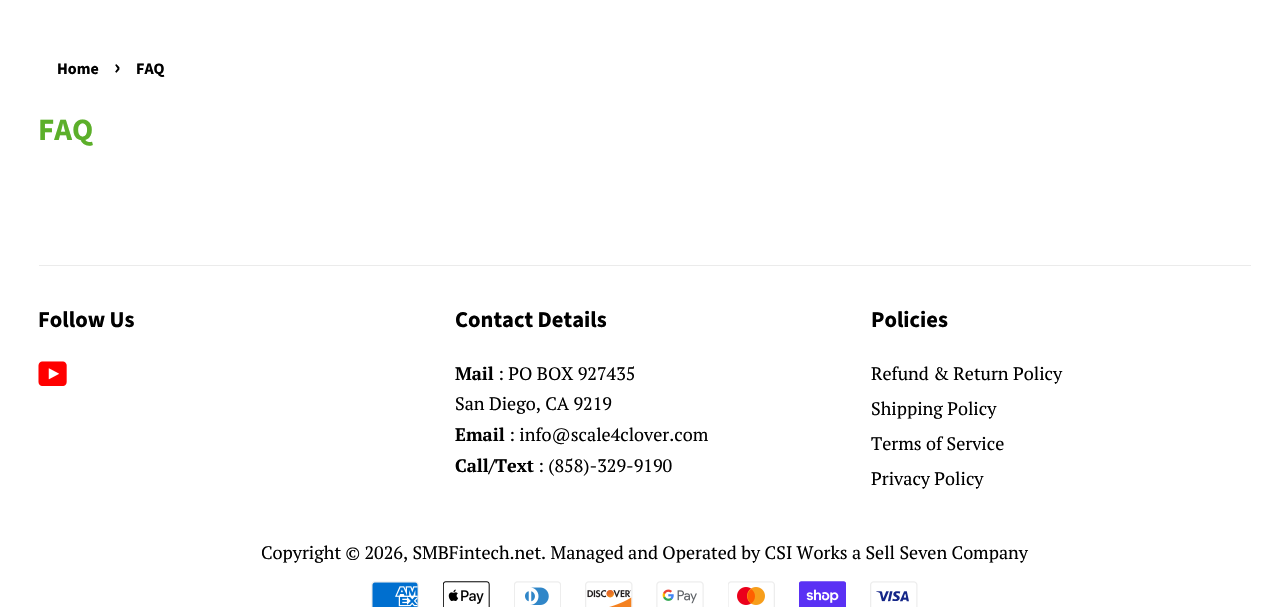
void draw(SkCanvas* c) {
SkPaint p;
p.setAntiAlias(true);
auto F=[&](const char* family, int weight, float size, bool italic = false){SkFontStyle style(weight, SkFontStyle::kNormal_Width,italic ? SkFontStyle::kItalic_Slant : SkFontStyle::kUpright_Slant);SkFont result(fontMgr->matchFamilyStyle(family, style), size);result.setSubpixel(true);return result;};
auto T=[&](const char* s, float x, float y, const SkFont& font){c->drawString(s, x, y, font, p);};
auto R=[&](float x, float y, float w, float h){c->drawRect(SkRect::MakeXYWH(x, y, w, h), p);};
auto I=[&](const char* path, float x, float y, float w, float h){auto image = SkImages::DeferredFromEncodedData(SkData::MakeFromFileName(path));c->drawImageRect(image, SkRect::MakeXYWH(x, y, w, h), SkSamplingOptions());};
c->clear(0xffffffff);
auto f1 = F("Source Sans Pro",700,16);
p.setColor(0xff000000);
T("Home",57,74,f1);
auto f2 = F("Source Sans Pro",700,22);
T("›",114,74,f2);
T("FAQ",136,74,f1);
auto f3 = F("Source Sans Pro",700,31);
p.setColor(0xff5caf2a);
T("FAQ",38,140,f3);
p.setColor(0xffebebeb);
R(39,265,1212,1);
auto f4 = F("Source Sans Pro",700,22.5);
p.setColor(0xff000000);
T("Follow Us",38,327,f4);
I("1.png",38,361,29,25);
T("Contact Details",455,327,f4);
auto f5 = F("PT Serif",700,18.05);
T("Mail",455,380,f5);
auto f6 = F("PT Serif",400,18.05);
T(": PO BOX 927435",498,380,f6);
T("San Diego, CA 9219",455,410,f6);
T("Email",455,441,f5);
T(": info@scale4clover.com",509,441,f6);
T("Call/Text",455,472,f5);
T(": (858)-329-9190",538,472,f6);
T("Policies",871,327,f4);
T("Refund & Return Policy",871,380,f6);
T("Shipping Policy",871,415,f6);
T("Terms of Service",871,450,f6);
T("Privacy Policy",871,485,f6);
T("Copyright © 2026, SMBFintech.net. Managed and Operated by CSI Works a Sell Seven Company",261,559,f6);
I("2.png",371,581,48,26);
I("3.png",443,581,47,26);
I("4.png",514,581,47,26);
I("5.png",585,581,48,26);
I("6.png",656,581,48,26);
I("7.png",728,581,47,26);
I("8.png",799,581,47,26);
I("9.png",870,581,48,26);
}
